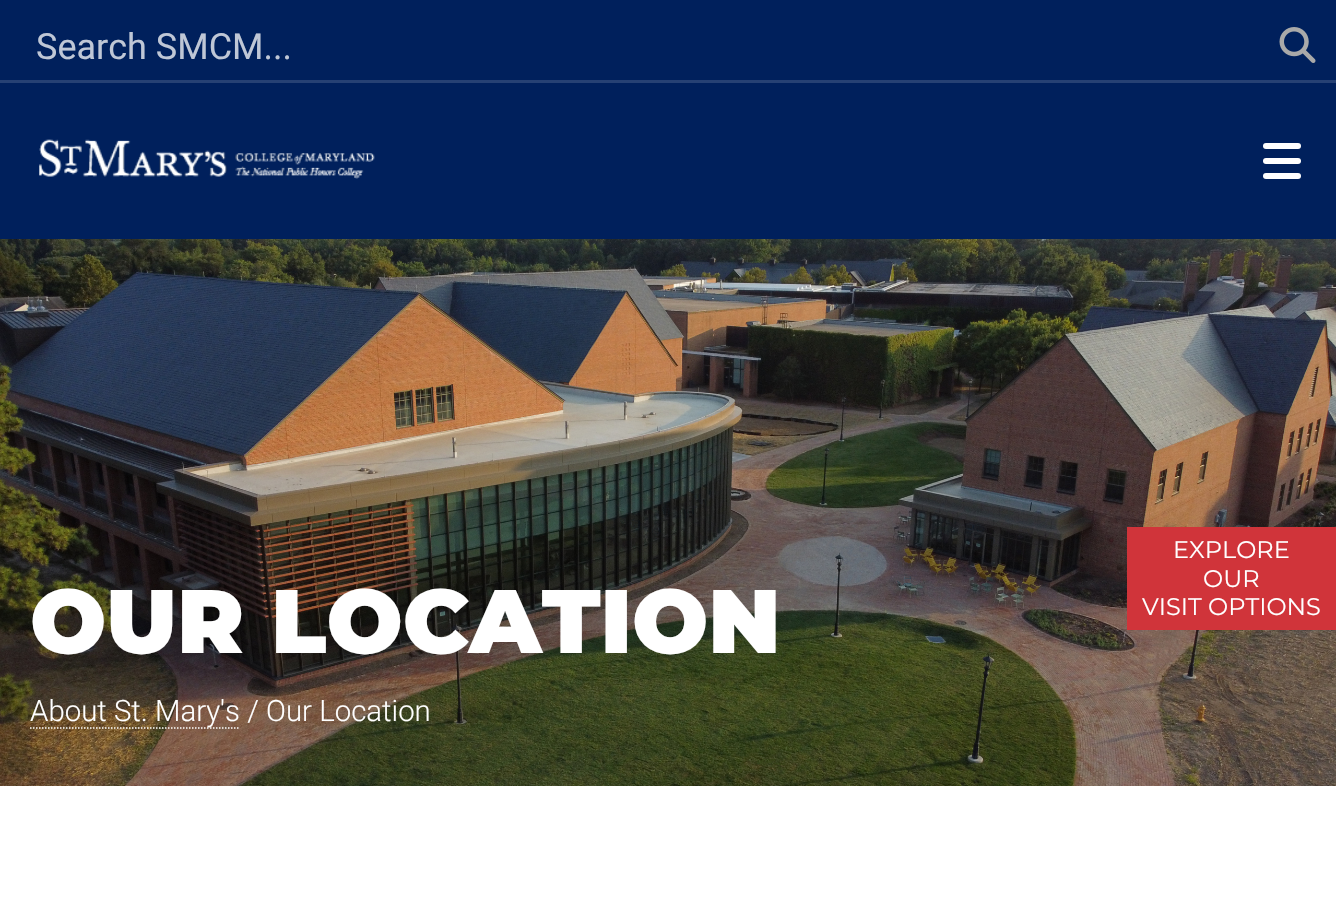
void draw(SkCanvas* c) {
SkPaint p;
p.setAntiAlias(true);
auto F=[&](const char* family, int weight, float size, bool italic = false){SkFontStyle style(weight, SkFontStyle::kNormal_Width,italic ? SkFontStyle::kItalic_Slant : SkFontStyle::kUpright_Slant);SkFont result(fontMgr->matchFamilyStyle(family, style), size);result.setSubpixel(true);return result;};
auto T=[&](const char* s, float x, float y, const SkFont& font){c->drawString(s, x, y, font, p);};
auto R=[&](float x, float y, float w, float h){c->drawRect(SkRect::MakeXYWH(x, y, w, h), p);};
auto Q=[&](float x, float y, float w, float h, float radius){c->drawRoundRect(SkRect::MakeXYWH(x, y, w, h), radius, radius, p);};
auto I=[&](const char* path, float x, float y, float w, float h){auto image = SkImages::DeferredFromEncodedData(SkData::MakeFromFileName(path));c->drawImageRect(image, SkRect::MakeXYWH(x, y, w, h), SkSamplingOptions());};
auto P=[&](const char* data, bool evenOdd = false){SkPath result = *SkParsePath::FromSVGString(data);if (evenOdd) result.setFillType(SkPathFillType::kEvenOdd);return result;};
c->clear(0xffffffff);
p.setColor(0xff00205c);
R(0,0,1336,80);
p.setColor(0xff264174);
R(0,80,1336,3);
auto f1 = F("Roboto",400,36);
p.setColor(0xffbfc7d6);
T("Search SMCM...",36,59,f1);
I("1.png",1279,27,37,36);
p.setColor(0xff00205c);
R(0,83,1336,156);
I("2.png",39,139,336,40);
p.setColor(0xffffffff);
Q(1263,143,38,6,3);
Q(1263,158,38,6,3);
Q(1263,173,38,6,3);
I("3.png",0,239,1336,547);
p.setColor(0xffd0343a);
R(1127,527,209,103);
auto f2 = F("Montserrat",400,24);
p.setColor(0xffffffff);
T("EXPLORE",1173,558,f2);
T("OUR",1203,587,f2);
T("VISIT OPTIONS",1142,615,f2);
auto f3 = F("Montserrat",900,90);
T("OUR LOCATION",30,653,f3);
p.setStroke(true);
p.setStrokeWidth(1.5);
p.setPathEffect(SkDashPathEffect::Make({{1.5f,1.5f}}, 0));
c->drawPath(P("M30 728h210"),p);
p.setPathEffect(nullptr);
auto f4 = F("Roboto",300,29.4);
p.setStroke(false);
T("About St. Mary's / Our Location",30,721,f4);
}
